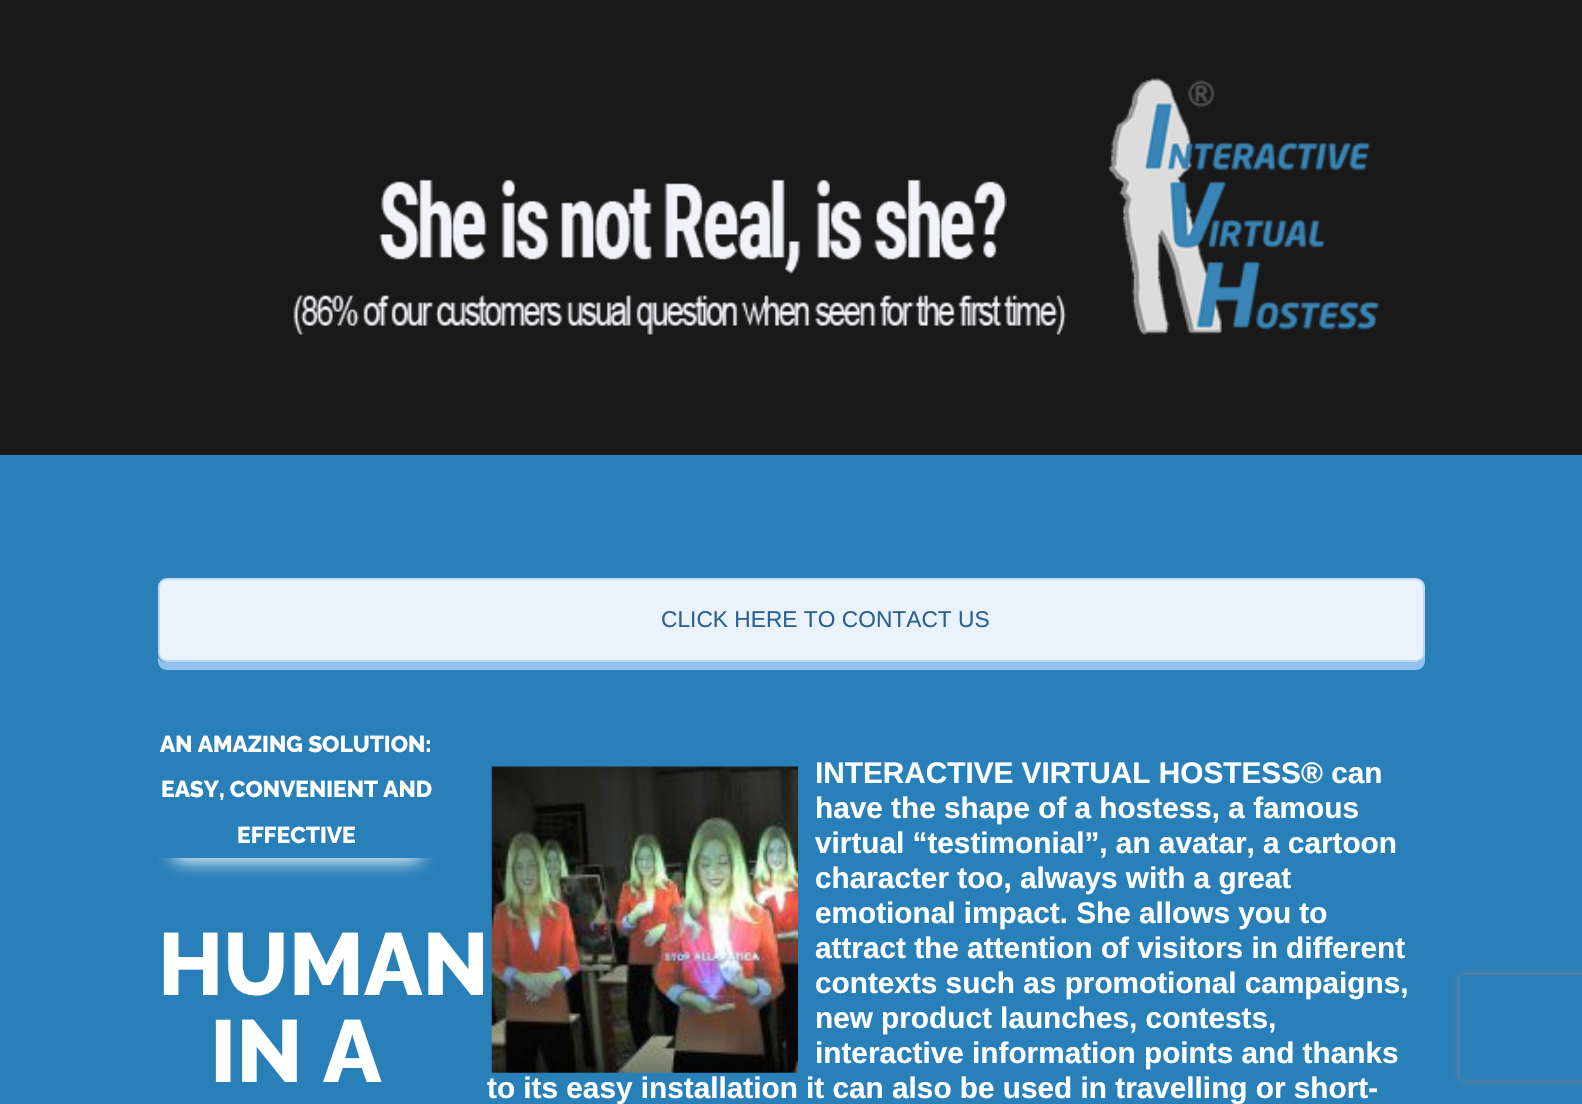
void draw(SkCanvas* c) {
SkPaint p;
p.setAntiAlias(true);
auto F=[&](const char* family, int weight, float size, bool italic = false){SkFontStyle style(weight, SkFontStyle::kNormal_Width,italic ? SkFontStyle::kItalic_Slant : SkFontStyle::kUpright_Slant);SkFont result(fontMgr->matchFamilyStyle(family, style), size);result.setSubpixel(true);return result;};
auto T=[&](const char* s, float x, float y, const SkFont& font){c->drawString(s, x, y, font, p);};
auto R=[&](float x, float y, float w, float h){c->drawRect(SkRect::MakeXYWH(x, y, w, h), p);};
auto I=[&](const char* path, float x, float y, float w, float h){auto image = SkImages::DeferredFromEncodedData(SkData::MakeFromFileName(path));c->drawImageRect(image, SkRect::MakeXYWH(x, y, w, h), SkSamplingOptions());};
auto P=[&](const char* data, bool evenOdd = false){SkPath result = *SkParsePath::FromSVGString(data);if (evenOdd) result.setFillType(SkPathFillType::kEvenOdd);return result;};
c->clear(0xff191919);
I("1.png",293,78,1087,257);
p.setColor(0xff2980b9);
R(0,455,1582,649);
p.setColor(0xff93c1ed);
c->drawPath(P("M158 656v5c0 5 4 9 9 9h1249c5 0 9-4 9-9v-66l-1-3v61c0 5-3 9-8 9h-1250c-4 0-7-3-8-6z"),p);
p.setColor(0xffeaf3fb);
c->drawRoundRect(SkRect::MakeXYWH(159,579,1265,82),8,8,p);
p.setStroke(true);
p.setStrokeWidth(2);
p.setColor(0xffbedaf4);
c->drawRoundRect(SkRect::MakeXYWH(159,579,1265,82),8,8,p);
auto f1 = F("Liberation Sans",400,22.75);
p.setStroke(false);
p.setColor(0xff2a6194);
T("CLICK HERE TO CONTACT US",661,627,f1);
auto f2 = F("Raleway",800,22.75);
p.setColor(0xffffffff);
T("AN AMAZING SOLUTION:",160,752,f2);
T("EASY, CONVENIENT AND",161,797,f2);
T("EFFECTIVE",237,843,f2);
c->save();
c->clipRect(SkRect::MakeXYWH(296,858,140,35));
p.setMaskFilter(SkMaskFilter::MakeBlur(kNormal_SkBlurStyle, 9));
c->drawRoundRect(SkRect::MakeXYWH(137,837,285,24),12,12,p);
p.setMaskFilter(nullptr);
c->restore();
c->save();
c->clipRect(SkRect::MakeXYWH(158,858,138,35));
p.setMaskFilter(SkMaskFilter::MakeBlur(kNormal_SkBlurStyle, 9));
c->drawRoundRect(SkRect::MakeXYWH(172,837,285,24),12,12,p);
p.setMaskFilter(nullptr);
c->restore();
auto f3 = F("Raleway",800,87.5);
T("HUMAN",158,995,f3);
T("IN A",210,1082,f3);
auto f4 = F("Liberation Sans",700,29.75);
T("INTERACTIVE VIRTUAL HOSTESS® can",815,783,f4);
T("have the shape of a hostess, a famous",815,818,f4);
T("virtual “testimonial”, an avatar, a cartoon",815,853,f4);
T("character too, always with a great",815,888,f4);
T("emotional impact. She allows you to",815,923,f4);
T("attract the attention of visitors in different",815,958,f4);
T("contexts such as promotional campaigns,",815,993,f4);
T("new product launches, contests,",815,1028,f4);
T("interactive information points and thanks",815,1063,f4);
T("to its easy installation it can also be used in travelling or short-",487,1098,f4);
I("2.png",491,766,307,307);
c->save();
c->clipPath(P("M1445 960h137v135h-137zm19 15h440c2 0 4 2 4 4v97c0 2-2 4-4 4h-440c-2 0-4-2-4-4v-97c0-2 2-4 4-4z",true),true);
p.setColor(0xff808080);
p.setMaskFilter(SkMaskFilter::MakeBlur(kNormal_SkBlurStyle, 4.5));
c->drawRoundRect(SkRect::MakeXYWH(1460,975,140,105),4,4,p);
p.setMaskFilter(nullptr);
c->restore();
}
